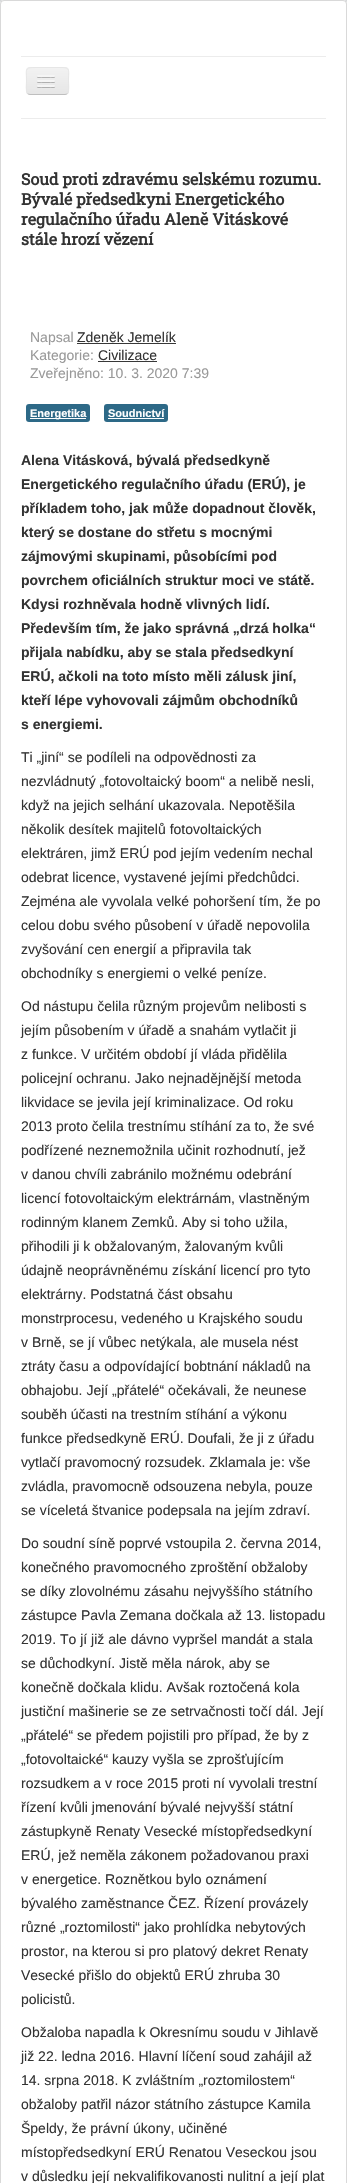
void draw(SkCanvas* c) {
SkPaint p;
p.setAntiAlias(true);
auto F=[&](const char* family, int weight, float size, bool italic = false){SkFontStyle style(weight, SkFontStyle::kNormal_Width,italic ? SkFontStyle::kItalic_Slant : SkFontStyle::kUpright_Slant);SkFont result(fontMgr->matchFamilyStyle(family, style), size);result.setSubpixel(true);return result;};
auto T=[&](const char* s, float x, float y, const SkFont& font){c->drawString(s, x, y, font, p);};
auto R=[&](float x, float y, float w, float h){c->drawRect(SkRect::MakeXYWH(x, y, w, h), p);};
auto Q=[&](float x, float y, float w, float h, float radius){c->drawRoundRect(SkRect::MakeXYWH(x, y, w, h), radius, radius, p);};
auto P=[&](const char* data, bool evenOdd = false){SkPath result = *SkParsePath::FromSVGString(data);if (evenOdd) result.setFillType(SkPathFillType::kEvenOdd);return result;};
c->clear(0xffd6d8d9);
p.setColor(0xffffffff);
Q(0,0,347,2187,4);
p.setStroke(true);
p.setStrokeWidth(1);
p.setColor(0x26000000);
c->drawRoundRect(SkRect::MakeXYWH(.5,.5,346,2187),3.5,3.5,p);
p.setStroke(false);
p.setColor(0xffececec);
R(21,56,305,1);
R(21,118,305,1);
p.setColor(0xffededed);
Q(26,67,43,28,4);
c->save();
c->clipPath(P("M30 67h35c2 0 4 2 4 4v20c0 2-2 4-4 4h-35c-2 0-4-2-4-4v-20c0-2 2-4 4-4z"),true);
{
const SkColor colors[] = {0xfff2f2f2,0xffe6e6e6};
const float stops[] = {0,1};
const SkPoint ends[] = {{48,68}, {48,94}};
p.setShader(SkGradientShader::MakeLinear(ends, colors, stops, 2, SkTileMode::kClamp));
p.setAlpha(255);
}
R(26,68,43,26);
c->restore();
p.setStroke(true);
p.setShader(nullptr);
p.setColor(0xffbfbfbf);
c->drawPath(P("M67.5 93.5c-.5 .5-1.5 1-2.5 1h-35c-1 0-2-.5-2.5-1"),p);
p.setColor(0xffe6e6e6);
c->drawPath(P("M27.5 93.5c-2-2.5-1-10-1-12.5c0-12-2.5-13.5 9.5-13.5h23c12 0 9.5 1.5 9.5 13.5c0 2.5 1 10-1 12.5"),p);
p.setStroke(false);
p.setColor(0xffb3b3b3);
c->drawPath(P("M37 76.5c-1 2 3.5 1.5 3.5 1.5h11c0 0 4.5 .5 3.5-1.5c-1 1-7.5 .5-9 .5c-1.5 0-8 .5-9-.5z"),p);
p.setColor(0xfff5f5f5);
Q(37,75,18,2,1);
p.setColor(0xffb0b0b0);
c->drawPath(P("M37 81.5c-1 2 3.5 1.5 3.5 1.5h11c0 0 4.5 .5 3.5-1.5c-1 1-7.5 .5-9 .5c-1.5 0-8 .5-9-.5z"),p);
p.setColor(0xfff5f5f5);
Q(37,80,18,2,1);
p.setColor(0xffafafaf);
c->drawPath(P("M37 86.5c-1 2 3.5 1.5 3.5 1.5h11c0 0 4.5 .5 3.5-1.5c-1 1-7.5 .5-9 .5c-1.5 0-8 .5-9-.5z"),p);
p.setColor(0xfff5f5f5);
Q(37,85,18,2,1);
auto f1 = F("Roboto Slab",700,16);
p.setColor(0xff333333);
T("Soud proti zdravému selskému rozumu.",21,185,f1);
T("Bývalé předsedkyni Energetického",21,205,f1);
T("regulačního úřadu Aleně Vitáskové",21,225,f1);
T("stále hrozí vězení",21,245,f1);
auto f2 = F("Liberation Sans",400,14);
p.setColor(0xff999999);
T("Napsal",30,342,f2);
p.setColor(0xff333333);
T("Zdeněk Jemelík",77,342,f2);
p.setColor(0xff383838);
R(77,343,99,1);
p.setColor(0xff999999);
T("Kategorie:",30,360,f2);
p.setColor(0xff333333);
T("Civilizace",98,360,f2);
p.setColor(0xff383838);
R(98,361,59,1);
p.setColor(0xff999999);
T("Zveřejněno: 10. 3. 2020 7:39",30,378,f2);
p.setColor(0xff2d6987);
Q(26,404,64,18,3);
p.setColor(0xffffffff);
R(30,418,56,1);
auto f3 = F("Liberation Sans",700,11);
T("Energetika",30,417,f3);
p.setColor(0xff2d6987);
Q(104,404,64,18,3);
p.setColor(0xffffffff);
T("Soudnictví",108,417,f3);
R(108,418,56,1);
auto f4 = F("Liberation Sans",700,14);
p.setColor(0xff333333);
T("Alena Vitásková, bývalá předsedkyně",21,465,f4);
T("Energetického regulačního úřadu (ERÚ), je",21,489,f4);
T("příkladem toho, jak může dopadnout člověk,",21,513,f4);
T("který se dostane do střetu s mocnými",21,537,f4);
T("zájmovými skupinami, působícími pod",21,561,f4);
T("povrchem oficiálních struktur moci ve státě.",21,585,f4);
T("Kdysi rozhněvala hodně vlivných lidí.",21,609,f4);
T("Především tím, že jako správná „drzá holka“",21,633,f4);
T("přijala nabídku, aby se stala předsedkyní",21,657,f4);
T("ERÚ, ačkoli na toto místo měli zálusk jiní,",21,681,f4);
T("kteří lépe vyhovovali zájmům obchodníků",21,705,f4);
T("s energiemi.",21,729,f4);
T("Ti „jiní“ se podíleli na odpovědnosti za",21,762,f2);
T("nezvládnutý „fotovoltaický boom“ a nelibě nesli,",21,786,f2);
T("když na jejich selhání ukazovala. Nepotěšila",21,810,f2);
T("několik desítek majitelů fotovoltaických",21,834,f2);
T("elektráren, jimž ERÚ pod jejím vedením nechal",21,858,f2);
T("odebrat licence, vystavené jejími předchůdci.",21,882,f2);
T("Zejména ale vyvolala velké pohoršení tím, že po",21,906,f2);
T("celou dobu svého působení v úřadě nepovolila",21,930,f2);
T("zvyšování cen energií a připravila tak",21,954,f2);
T("obchodníky s energiemi o velké peníze.",21,978,f2);
T("Od nástupu čelila různým projevům nelibosti s",21,1011,f2);
T("jejím působením v úřadě a snahám vytlačit ji",21,1035,f2);
T("z funkce. V určitém období jí vláda přidělila",21,1059,f2);
T("policejní ochranu. Jako nejnadějnější metoda",21,1083,f2);
T("likvidace se jevila její kriminalizace. Od roku",21,1107,f2);
T("2013 proto čelila trestnímu stíhání za to, že své",21,1131,f2);
T("podřízené neznemožnila učinit rozhodnutí, jež",21,1155,f2);
T("v danou chvíli zabránilo možnému odebrání",21,1179,f2);
T("licencí fotovoltaickým elektrárnám, vlastněným",21,1203,f2);
T("rodinným klanem Zemků. Aby si toho užila,",21,1227,f2);
T("přihodili ji k obžalovaným, žalovaným kvůli",21,1251,f2);
T("údajně neoprávněnému získání licencí pro tyto",21,1275,f2);
T("elektrárny. Podstatná část obsahu",21,1299,f2);
T("monstrprocesu, vedeného u Krajského soudu",21,1323,f2);
T("v Brně, se jí vůbec netýkala, ale musela nést",21,1347,f2);
T("ztráty času a odpovídající bobtnání nákladů na",21,1371,f2);
T("obhajobu. Její „přátelé“ očekávali, že neunese",21,1395,f2);
T("souběh účasti na trestním stíhání a výkonu",21,1419,f2);
T("funkce předsedkyně ERÚ. Doufali, že ji z úřadu",21,1443,f2);
T("vytlačí pravomocný rozsudek. Zklamala je: vše",21,1467,f2);
T("zvládla, pravomocně odsouzena nebyla, pouze",21,1491,f2);
T("se víceletá štvanice podepsala na jejím zdraví.",21,1515,f2);
T("Do soudní síně poprvé vstoupila 2. června 2014,",21,1548,f2);
T("konečného pravomocného zproštění obžaloby",21,1572,f2);
T("se díky zlovolnému zásahu nejvyššího státního",21,1596,f2);
T("zástupce Pavla Zemana dočkala až 13. listopadu",21,1620,f2);
T("2019. To jí již ale dávno vypršel mandát a stala",21,1644,f2);
T("se důchodkyní. Jistě měla nárok, aby se",21,1668,f2);
T("konečně dočkala klidu. Avšak roztočená kola",21,1692,f2);
T("justiční mašinerie se ze setrvačnosti točí dál. Její",21,1716,f2);
T("„přátelé“ se předem pojistili pro případ, že by z",21,1740,f2);
T("„fotovoltaické“ kauzy vyšla se zprošťujícím",21,1764,f2);
T("rozsudkem a v roce 2015 proti ní vyvolali trestní",21,1788,f2);
T("řízení kvůli jmenování bývalé nejvyšší státní",21,1812,f2);
T("zástupkyně Renaty Vesecké místopředsedkyní",21,1836,f2);
T("ERÚ, jež neměla zákonem požadovanou praxi",21,1860,f2);
T("v energetice. Roznětkou bylo oznámení",21,1884,f2);
T("bývalého zaměstnance ČEZ. Řízení provázely",21,1908,f2);
T("různé „roztomilosti“ jako prohlídka nebytových",21,1932,f2);
T("prostor, na kterou si pro platový dekret Renaty",21,1956,f2);
T("Vesecké přišlo do objektů ERÚ zhruba 30",21,1980,f2);
T("policistů.",21,2004,f2);
T("Obžaloba napadla k Okresnímu soudu v Jihlavě",21,2037,f2);
T("již 22. ledna 2016. Hlavní líčení soud zahájil až",21,2061,f2);
T("14. srpna 2018. K zvláštním „roztomilostem“",21,2085,f2);
T("obžaloby patřil názor státního zástupce Kamila",21,2109,f2);
T("Špeldy, že právní úkony, učiněné",21,2133,f2);
T("místopředsedkyní ERÚ Renatou Veseckou jsou",21,2157,f2);
T("v důsledku její nekvalifikovanosti nulitní a její plat",21,2181,f2);
}
